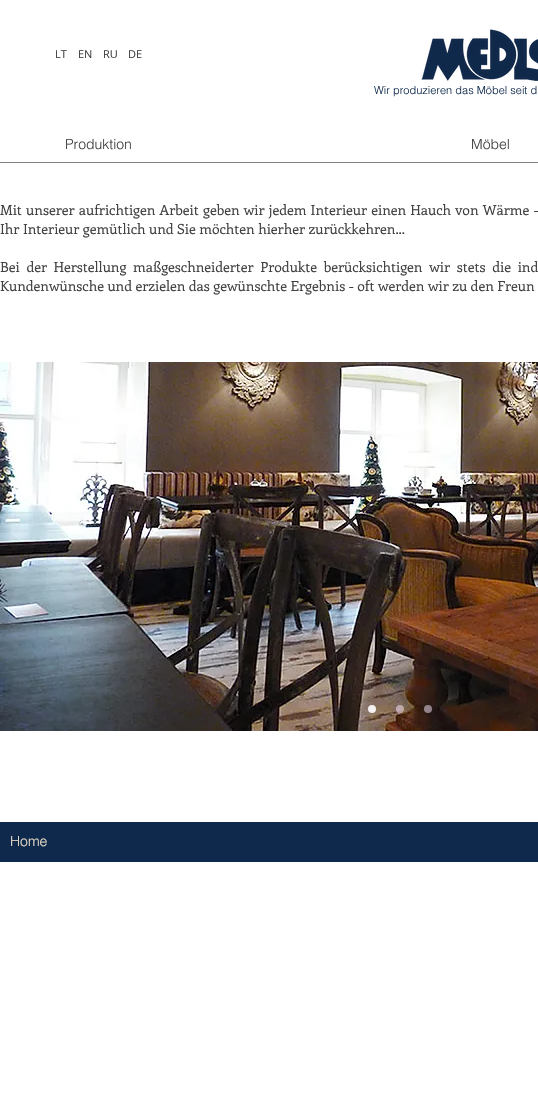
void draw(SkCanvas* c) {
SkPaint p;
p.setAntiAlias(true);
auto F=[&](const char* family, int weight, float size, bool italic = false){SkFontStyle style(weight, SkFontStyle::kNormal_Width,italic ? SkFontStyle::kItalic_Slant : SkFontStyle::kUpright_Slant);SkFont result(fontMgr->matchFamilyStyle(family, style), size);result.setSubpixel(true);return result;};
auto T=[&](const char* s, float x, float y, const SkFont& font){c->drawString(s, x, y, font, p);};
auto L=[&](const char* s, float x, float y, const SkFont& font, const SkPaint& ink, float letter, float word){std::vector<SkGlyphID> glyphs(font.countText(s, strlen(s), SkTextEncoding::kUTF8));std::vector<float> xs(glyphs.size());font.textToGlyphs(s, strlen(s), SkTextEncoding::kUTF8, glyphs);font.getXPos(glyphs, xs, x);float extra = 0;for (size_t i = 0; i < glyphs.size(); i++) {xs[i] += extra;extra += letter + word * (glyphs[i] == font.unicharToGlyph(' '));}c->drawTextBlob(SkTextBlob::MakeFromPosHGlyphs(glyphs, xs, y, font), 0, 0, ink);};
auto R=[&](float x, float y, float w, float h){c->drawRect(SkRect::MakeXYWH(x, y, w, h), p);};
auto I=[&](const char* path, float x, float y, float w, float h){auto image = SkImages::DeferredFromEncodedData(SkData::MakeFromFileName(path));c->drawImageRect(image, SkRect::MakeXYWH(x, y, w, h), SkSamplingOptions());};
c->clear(0xffffffff);
auto f1 = F("Open Sans",400,11);
p.setColor(0xff404040);
T("LT",55,58,f1);
T("EN",78,58,f1);
T("RU",103,58,f1);
T("DE",128,58,f1);
I("1.png",421,29,117,52);
auto f2 = F("helvetica",300,11);
p.setColor(0xff0e294b);
T("Wir produzieren das Möbel seit d",374,94,f2);
auto f3 = F("helvetica",300,14);
p.setColor(0xff404040);
T("Produktion",65,149,f3);
T("Möbel",471,149,f3);
p.setColor(0xff808080);
R(0,162,538,1);
auto f4 = F("Enriqueta",400,14);
p.setColor(0xff404040);
L("Mit unserer aufrichtigen Arbeit geben wir jedem Interieur einen Hauch von Wärme -",0,215,f4,p,0,.75);
T("Ihr Interieur gemütlich und Sie möchten hierher zurückkehren...",0,234,f4);
L("Bei der Herstellung maßgeschneiderter Produkte berücksichtigen wir stets die ind",0,272,f4,p,0,3.25);
T("Kundenwünsche und erzielen das gewünschte Ergebnis - oft werden wir zu den Freun",0,291,f4);
I("2.png",0,362,538,369);
p.setColor(0xe6ffffff);
c->drawCircle(372,709,4,p);
p.setColor(0x80ffebff);
c->drawCircle(400,709,4,p);
c->drawCircle(428,709,4,p);
p.setColor(0xff0e294b);
R(0,822,538,40);
p.setColor(0xffe6dbc7);
T("Home",10,846,f3);
}
